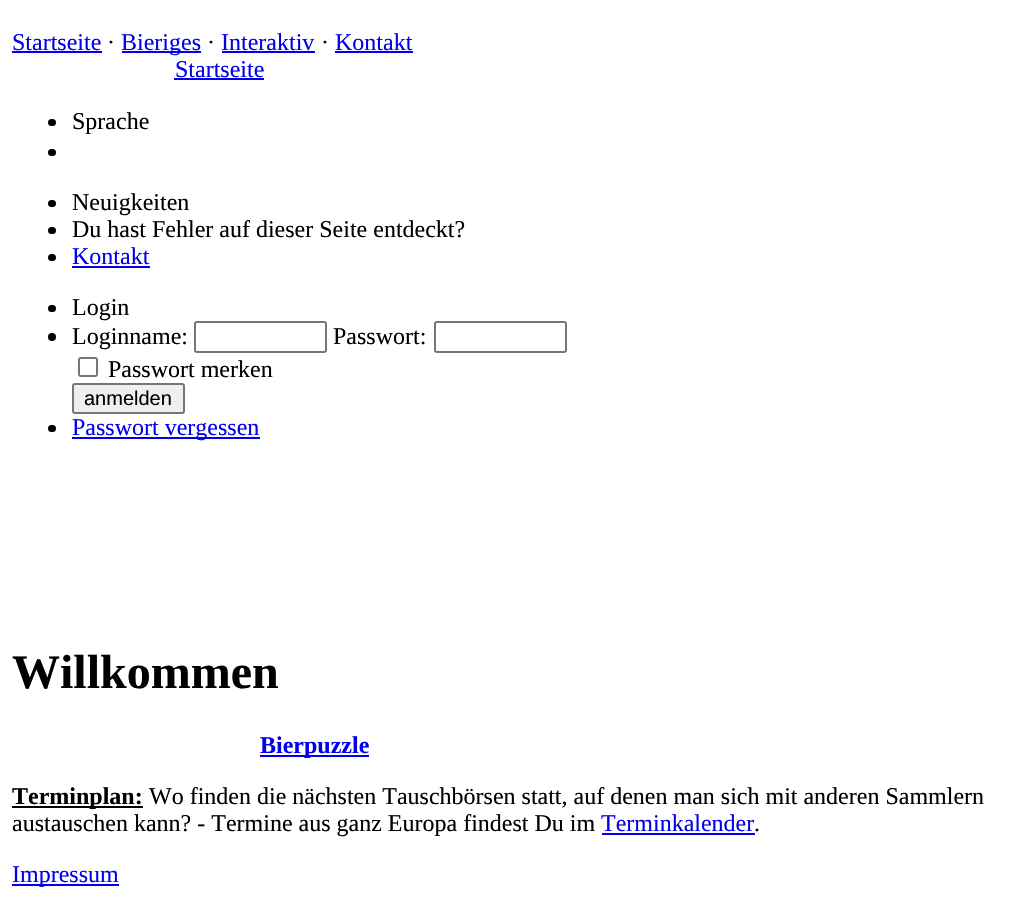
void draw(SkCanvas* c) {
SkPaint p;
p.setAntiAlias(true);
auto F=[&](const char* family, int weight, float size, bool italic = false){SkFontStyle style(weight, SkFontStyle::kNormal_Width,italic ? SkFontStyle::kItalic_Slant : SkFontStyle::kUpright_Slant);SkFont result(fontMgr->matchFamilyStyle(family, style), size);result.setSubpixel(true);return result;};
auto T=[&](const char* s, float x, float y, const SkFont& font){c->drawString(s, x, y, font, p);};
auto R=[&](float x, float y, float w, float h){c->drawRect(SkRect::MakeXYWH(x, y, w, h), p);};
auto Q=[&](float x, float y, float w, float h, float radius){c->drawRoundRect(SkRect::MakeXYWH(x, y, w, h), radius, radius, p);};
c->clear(0xffffffff);
auto f1 = F("Liberation Serif",400,24);
p.setColor(0xff0000ee);
T("Startseite",12,50,f1);
R(12,51,90,2);
p.setColor(0xff000000);
T("·",107,50,f1);
p.setColor(0xff0000ee);
R(122,51,79,2);
T("Bieriges",121,50,f1);
p.setColor(0xff000000);
T("·",207,50,f1);
p.setColor(0xff0000ee);
T("Interaktiv",221,50,f1);
R(222,51,93,2);
p.setColor(0xff000000);
T("·",321,50,f1);
p.setColor(0xff0000ee);
T("Kontakt",335,50,f1);
R(335,51,78,2);
T("Startseite",175,77,f1);
R(174,78,90,2);
p.setColor(0xff000000);
Q(48,119,8,7,3.5);
T("Sprache",72,129,f1);
Q(48,149,8,7,3.5);
Q(48,200,8,7,3.5);
T("Neuigkeiten",72,210,f1);
Q(48,227,8,7,3.5);
T("Du hast Fehler auf dieser Seite entdeckt?",72,237,f1);
Q(48,254,8,7,3.5);
p.setColor(0xff0000ee);
T("Kontakt",72,264,f1);
R(72,266,78,2);
p.setColor(0xff000000);
Q(48,305,8,7,3.5);
T("Login",72,315,f1);
c->drawCircle(52,337,4,p);
T("Loginname:",72,344,f1);
p.setStroke(true);
p.setStrokeWidth(2);
p.setColor(0xff767676);
c->drawRoundRect(SkRect::MakeXYWH(195,322,131,30),2,2,p);
p.setStroke(false);
p.setColor(0xff000000);
T("Passwort:",333,344,f1);
p.setStroke(true);
p.setColor(0xff767676);
c->drawRoundRect(SkRect::MakeXYWH(435,322,131,30),2,2,p);
c->drawRoundRect(SkRect::MakeXYWH(79,358,18,18),2,2,p);
p.setStroke(false);
p.setColor(0xff000000);
T("Passwort merken",108,377,f1);
p.setColor(0xffefefef);
c->drawRoundRect(SkRect::MakeXYWH(73,384,111,29),2,2,p);
p.setStroke(true);
p.setColor(0xff767676);
c->drawRoundRect(SkRect::MakeXYWH(73,384,111,29),2,2,p);
auto f2 = F("Liberation Sans",400,20);
p.setStroke(false);
p.setColor(0xff000000);
T("anmelden",84,405,f2);
Q(48,425,8,7,3.5);
p.setColor(0xff0000ee);
R(72,437,188,2);
T("Passwort vergessen",72,435,f1);
auto f3 = F("Liberation Serif",700,48);
p.setColor(0xff000000);
T("Willkommen",12,688,f3);
p.setColor(0xff0000ee);
R(260,755,109,2);
auto f4 = F("Liberation Serif",700,24);
T("Bierpuzzle",260,753,f4);
p.setColor(0xff000000);
R(12,806,131,2);
T("Terminplan:",12,804,f4);
T("Wo finden die nächsten Tauschbörsen statt, auf denen man sich mit anderen Sammlern",149,804,f1);
T("austauschen kann? - Termine aus ganz Europa findest Du im",12,831,f1);
p.setColor(0xff0000ee);
T("Terminkalender",601,831,f1);
R(602,833,153,2);
p.setColor(0xff000000);
T(".",754,831,f1);
p.setColor(0xff0000ee);
R(12,884,107,2);
T("Impressum",12,882,f1);
}
